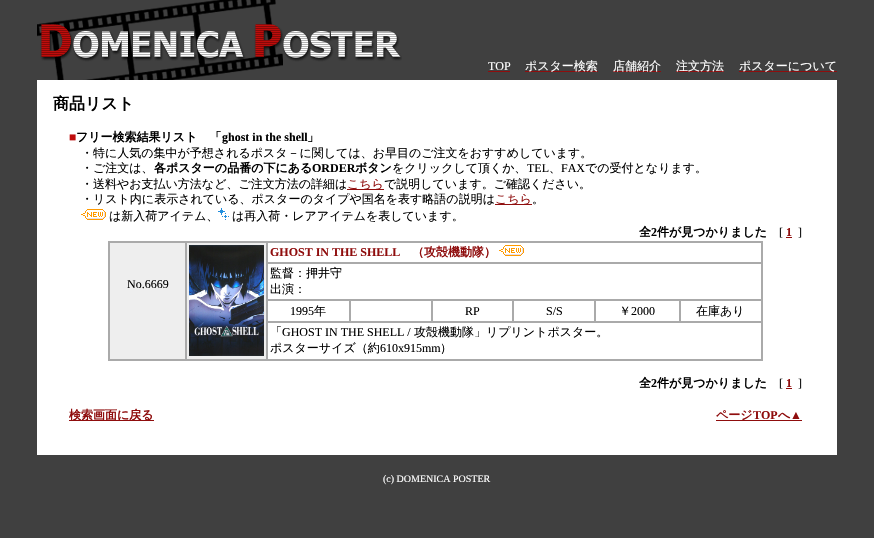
void draw(SkCanvas* c) {
SkPaint p;
p.setAntiAlias(true);
auto F=[&](const char* family, int weight, float size, bool italic = false){SkFontStyle style(weight, SkFontStyle::kNormal_Width,italic ? SkFontStyle::kItalic_Slant : SkFontStyle::kUpright_Slant);SkFont result(fontMgr->matchFamilyStyle(family, style), size);result.setSubpixel(true);return result;};
auto T=[&](const char* s, float x, float y, const SkFont& font){c->drawString(s, x, y, font, p);};
auto R=[&](float x, float y, float w, float h){c->drawRect(SkRect::MakeXYWH(x, y, w, h), p);};
auto I=[&](const char* path, float x, float y, float w, float h){auto image = SkImages::DeferredFromEncodedData(SkData::MakeFromFileName(path));c->drawImageRect(image, SkRect::MakeXYWH(x, y, w, h), SkSamplingOptions());};
c->clear(0xff404040);
I("1.png",37,0,365,80);
auto f1 = F("Liberation Serif",400,12);
p.setColor(0xffffffff);
T("TOP",488,70,f1);
p.setColor(0xff8f0d0d);
R(488,71,22,1);
R(525,71,73,1);
auto f2 = F("WenQuanYi Zen Hei",500,12);
p.setColor(0xffffffff);
T("ポスター検索",525,70,f2);
p.setColor(0xff8f0d0d);
R(613,71,48,1);
p.setColor(0xffffffff);
T("店舗紹介",613,70,f2);
p.setColor(0xff8f0d0d);
R(676,71,48,1);
p.setColor(0xffffffff);
T("注文方法",676,70,f2);
p.setColor(0xff8f0d0d);
R(739,71,98,1);
p.setColor(0xffffffff);
T("ポスターについて",739,70,f2);
R(37,80,800,375);
auto f3 = F("WenQuanYi Zen Hei",700,16);
p.setColor(0xff000000);
T("商品リスト",53,109,f3);
p.setColor(0xffbf0d0d);
T("■",69,141,f1);
auto f4 = F("WenQuanYi Zen Hei",700,12);
p.setColor(0xff000000);
T("フリー検索結果リスト　「",76,141,f4);
auto f5 = F("Liberation Serif",700,12);
T("ghost in the shell",222,141,f5);
T("」",307,141,f4);
T("・特に人気の集中が予想されるポスタ－に関しては、お早目のご注文をおすすめしています。",81,157,f2);
T("・ご注文は、",81,172,f2);
T("各ポスターの品番の下にある",154,172,f4);
T("ORDER",312,172,f5);
T("ボタン",355,172,f4);
T("をクリックして頂くか、",392,172,f2);
T("TEL",527,172,f1);
T("FAX",561,172,f1);
T("での受付となります。",585,172,f2);
T("、",549,172,f2);
T("・送料やお支払い方法など、ご注文方法の詳細は",81,188,f2);
p.setColor(0xff8f0d0d);
R(347,189,37,1);
T("こちら",347,188,f2);
p.setColor(0xff000000);
T("で説明しています。ご確認ください。",384,188,f2);
T("・リスト内に表示されている、ポスターのタイプや国名を表す略語の説明は",81,203,f2);
p.setColor(0xff8f0d0d);
R(495,204,37,1);
T("こちら",495,203,f2);
p.setColor(0xff000000);
T("。",532,203,f2);
I("2.png",81,209,25,11);
T("は新入荷アイテム、",109,220,f2);
I("3.png",218,208,11,12);
T("は再入荷・レアアイテムを表しています。",232,220,f2);
T("全",639,236,f4);
T("2",651,236,f5);
T("件が見つかりました",657,236,f4);
T("[",779,236,f1);
p.setColor(0xff8f0d0d);
T("1",786,236,f5);
R(786,237,6,1);
p.setColor(0xff000000);
T("]",798,236,f1);
p.setStroke(true);
p.setStrokeWidth(1);
p.setColor(0xffaaaaaa);
c->drawRect(SkRect::MakeXYWH(108.5,241.5,654,119),p);
p.setStroke(false);
p.setColor(0xffeeeeee);
c->drawRect(SkRect::MakeXYWH(186.5,242.5,80,117),p);
p.setStroke(true);
p.setColor(0xffaaaaaa);
c->drawRect(SkRect::MakeXYWH(186.5,242.5,80,117),p);
I("4.png",189,245,75,111);
c->drawRect(SkRect::MakeXYWH(267.5,242.5,494,20),p);
p.setStroke(false);
p.setColor(0xff8f0d0d);
T("GHOST IN THE SHELL",270,256,f5);
T("（攻殻機動隊）",412,256,f4);
I("2.png",499,245,25,11);
p.setColor(0xffeeeeee);
c->drawRect(SkRect::MakeXYWH(109.5,242.5,76,117),p);
p.setStroke(true);
p.setColor(0xffaaaaaa);
c->drawRect(SkRect::MakeXYWH(109.5,242.5,76,117),p);
p.setStroke(false);
p.setColor(0xff000000);
T("No.6669",127,288,f1);
p.setStroke(true);
p.setColor(0xffaaaaaa);
c->drawRect(SkRect::MakeXYWH(267.5,263.5,494,36),p);
p.setStroke(false);
p.setColor(0xff000000);
T("監督：押井守",270,277,f2);
T("出演：",270,293,f2);
p.setStroke(true);
p.setColor(0xffaaaaaa);
c->drawRect(SkRect::MakeXYWH(267.5,300.5,82,21),p);
p.setStroke(false);
p.setColor(0xff000000);
T("1995",290,315,f1);
T("年",314,315,f2);
p.setStroke(true);
p.setColor(0xffaaaaaa);
c->drawRect(SkRect::MakeXYWH(350.5,300.5,81,21),p);
c->drawRect(SkRect::MakeXYWH(432.5,300.5,80,21),p);
p.setStroke(false);
p.setColor(0xff000000);
T("RP",465,315,f1);
p.setStroke(true);
p.setColor(0xffaaaaaa);
c->drawRect(SkRect::MakeXYWH(513.5,300.5,81,21),p);
p.setStroke(false);
p.setColor(0xff000000);
T("S/S",546,315,f1);
p.setStroke(true);
p.setColor(0xffaaaaaa);
c->drawRect(SkRect::MakeXYWH(595.5,300.5,84,21),p);
p.setStroke(false);
p.setColor(0xff000000);
T("￥",619,315,f2);
T("2000",631,315,f1);
p.setStroke(true);
p.setColor(0xffaaaaaa);
c->drawRect(SkRect::MakeXYWH(680.5,300.5,81,21),p);
p.setStroke(false);
p.setColor(0xff000000);
T("在庫あり",696,315,f2);
p.setStroke(true);
p.setColor(0xffaaaaaa);
c->drawRect(SkRect::MakeXYWH(267.5,322.5,494,37),p);
p.setStroke(false);
p.setColor(0xff000000);
T("「",270,336,f2);
T("GHOST IN THE SHELL /",282,336,f1);
T("攻殻機動隊」リプリントポスター。",414,336,f2);
T("ポスターサイズ（約",270,352,f2);
T("610x915mm",380,352,f1);
T("）",440,352,f2);
T("全",639,387,f4);
T("2",651,387,f5);
T("件が見つかりました",657,387,f4);
T("[",779,387,f1);
p.setColor(0xff8f0d0d);
T("1",786,387,f5);
R(786,388,6,1);
p.setColor(0xff000000);
T("]",798,387,f1);
p.setColor(0xff8f0d0d);
R(69,420,85,1);
T("検索画面に戻る",69,419,f4);
R(716,420,86,1);
T("ページ",716,419,f4);
T("TOP",753,419,f5);
T("へ",778,419,f4);
T("▲",790,419,f5);
auto f6 = F("Liberation Serif",400,10);
p.setColor(0xffffffff);
T("(c) DOMENICA POSTER",383,482,f6);
}
